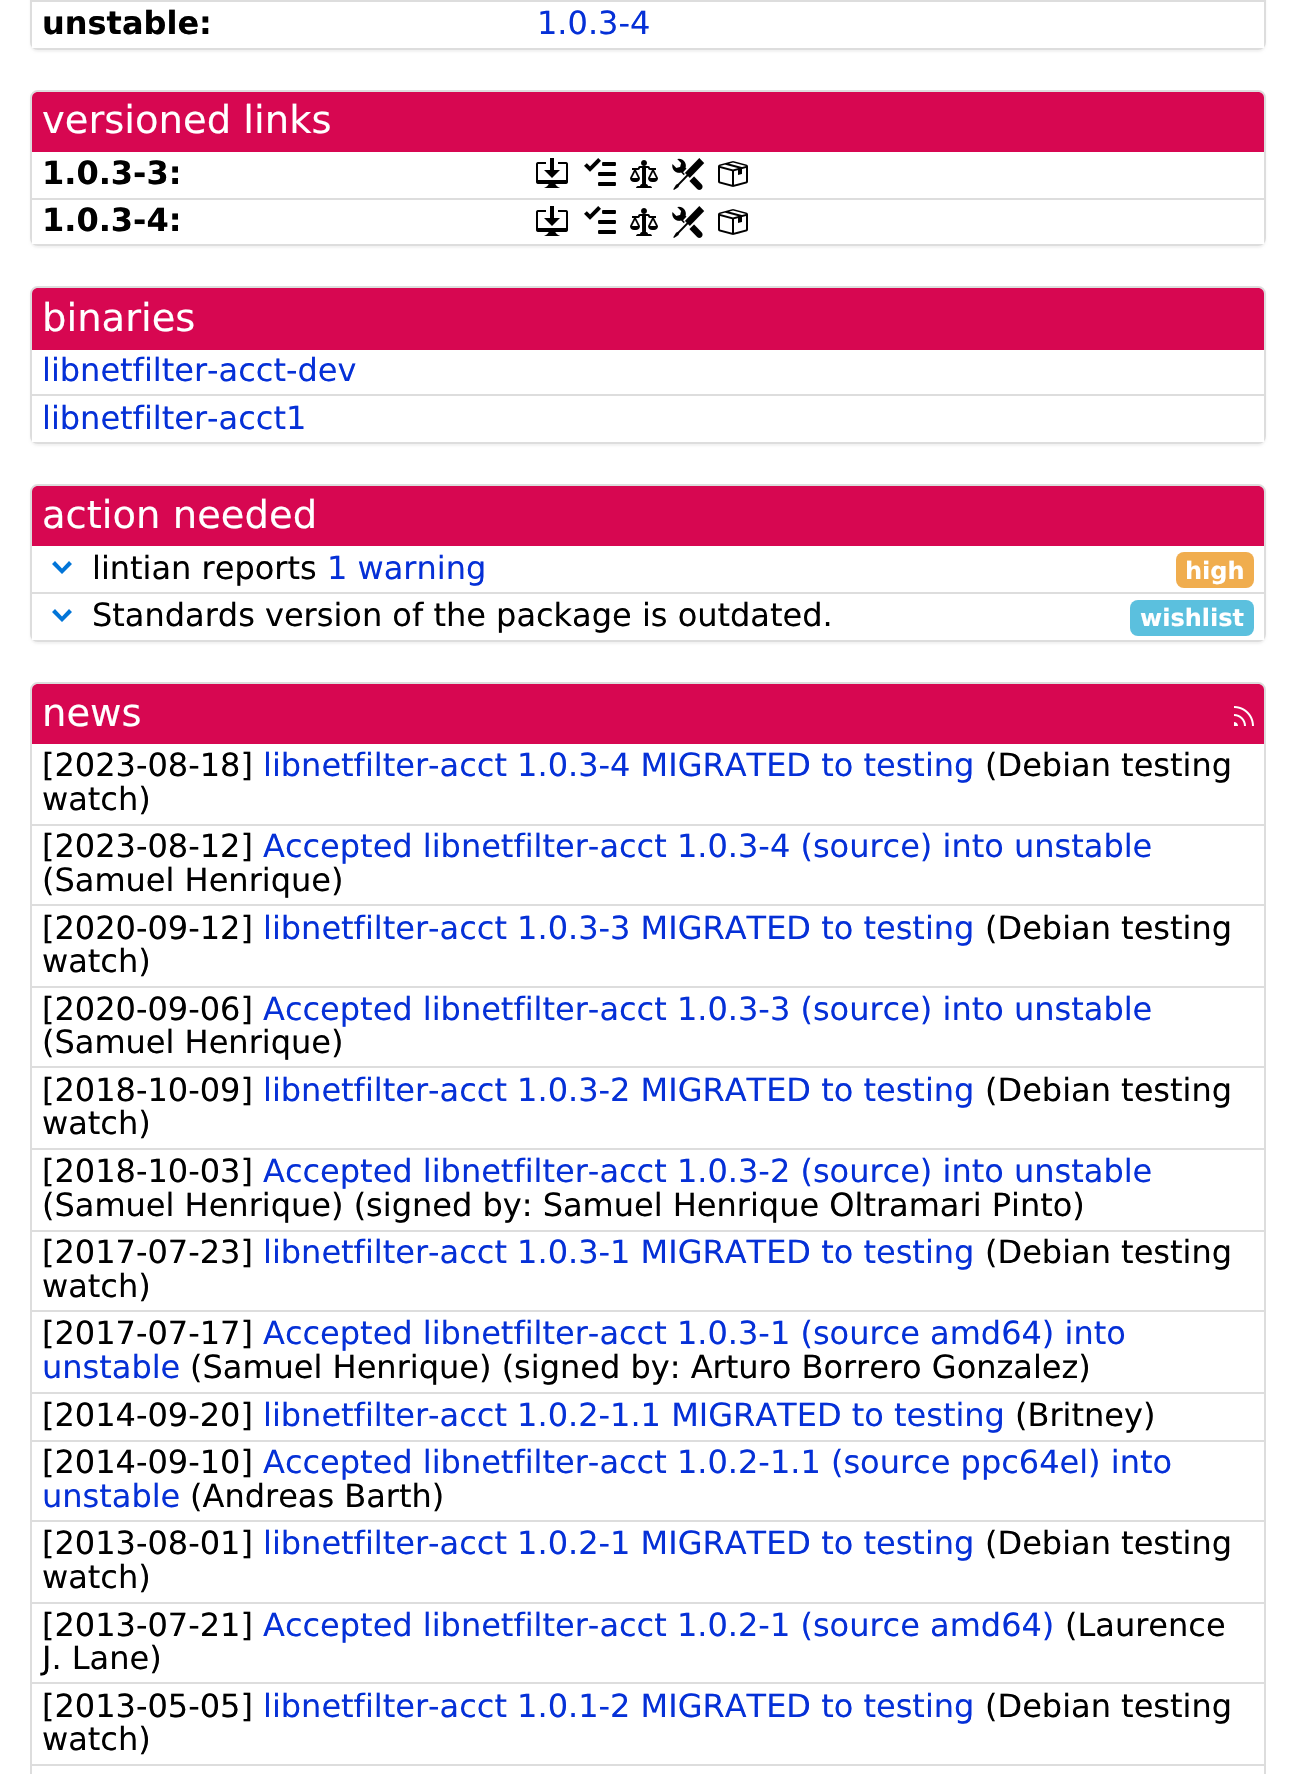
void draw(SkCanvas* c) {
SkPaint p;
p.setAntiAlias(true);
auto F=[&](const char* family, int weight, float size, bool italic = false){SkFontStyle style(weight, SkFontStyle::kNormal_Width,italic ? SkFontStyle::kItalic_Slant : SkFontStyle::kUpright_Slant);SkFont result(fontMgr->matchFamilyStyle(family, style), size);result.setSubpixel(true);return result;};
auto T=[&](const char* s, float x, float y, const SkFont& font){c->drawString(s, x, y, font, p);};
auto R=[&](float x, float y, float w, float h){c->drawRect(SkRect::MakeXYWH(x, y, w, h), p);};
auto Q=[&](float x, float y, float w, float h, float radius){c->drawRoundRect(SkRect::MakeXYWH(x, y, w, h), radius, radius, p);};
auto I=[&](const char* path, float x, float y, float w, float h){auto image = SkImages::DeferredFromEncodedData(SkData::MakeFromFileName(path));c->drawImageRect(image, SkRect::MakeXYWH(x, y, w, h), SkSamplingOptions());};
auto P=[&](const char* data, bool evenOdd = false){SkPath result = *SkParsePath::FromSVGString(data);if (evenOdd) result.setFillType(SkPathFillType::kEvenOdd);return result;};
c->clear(0xffffffff);
p.setColor(0x0d000000);
p.setMaskFilter(SkMaskFilter::MakeBlur(kNormal_SkBlurStyle, 1));
c->drawRoundRect(SkRect::MakeXYWH(30,-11,1236,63),8,8,p);
p.setMaskFilter(nullptr);
p.setStroke(true);
p.setStrokeWidth(2);
p.setColor(0xffdddddd);
c->drawRoundRect(SkRect::MakeXYWH(31,-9,1234,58),7,7,p);
p.setStroke(false);
p.setColor(0xffffffff);
R(32,40,1232,8);
c->drawPath(P("M32 0h1232v40c0 4.5-3.5 8-8 8h-1216c-4.5 0-8-3.5-8-8z"),p);
p.setColor(0xffdddddd);
R(32,0,1232,2);
auto f1 = F("DejaVu Sans",700,32);
p.setColor(0xff000000);
T("unstable:",42,34,f1);
auto f2 = F("DejaVu Sans",400,32);
p.setColor(0xff0530d7);
T("1.0.3-4",537,34,f2);
p.setColor(0x0d000000);
p.setMaskFilter(SkMaskFilter::MakeBlur(kNormal_SkBlurStyle, 1));
c->drawRoundRect(SkRect::MakeXYWH(30,92,1236,156),8,8,p);
p.setMaskFilter(nullptr);
p.setStroke(true);
p.setColor(0xffdddddd);
c->drawRoundRect(SkRect::MakeXYWH(31,91,1234,154),7,7,p);
p.setStroke(false);
p.setColor(0xffd70751);
c->drawPath(P("M38 92h1220c3.5 0 6 2.5 6 6v56h-1232v-56c0-3.5 2.5-6 6-6z"),p);
auto f3 = F("DejaVu Sans",400,38.5);
p.setColor(0xffffffff);
T("versioned links",42,133,f3);
R(32,152,1232,92);
p.setColor(0xff000000);
T("1.0.3-3:",42,184,f1);
I("1.png",536,158,32,30);
I("2.png",584,158,32,28);
I("3.png",630,160,28,28);
I("4.png",672,158,33,32);
I("5.png",718,161,30,26);
p.setColor(0xffdddddd);
R(32,198,1232,2);
p.setColor(0xff000000);
T("1.0.3-4:",42,231,f1);
I("1.png",536,206,32,30);
I("2.png",584,206,32,28);
I("3.png",630,208,28,28);
I("4.png",672,206,33,32);
I("5.png",718,209,30,26);
p.setColor(0x0d000000);
p.setMaskFilter(SkMaskFilter::MakeBlur(kNormal_SkBlurStyle, 1));
c->drawRoundRect(SkRect::MakeXYWH(30,288,1236,158),8,8,p);
p.setMaskFilter(nullptr);
p.setStroke(true);
p.setColor(0xffdddddd);
c->drawRoundRect(SkRect::MakeXYWH(31,287,1234,156),7,7,p);
p.setStroke(false);
p.setColor(0xffd70751);
c->drawPath(P("M38 288h1220c3.5 0 6 2.5 6 6v58h-1232v-58c0-3.5 2.5-6 6-6z"),p);
p.setColor(0xffffffff);
T("binaries",42,331,f3);
R(32,350,1232,92);
p.setColor(0xff0530d7);
T("libnetfilter-acct-dev",42,381,f2);
p.setColor(0xffdddddd);
R(32,394,1232,2);
p.setColor(0xff0530d7);
T("libnetfilter-acct1",42,429,f2);
p.setColor(0x0d000000);
p.setMaskFilter(SkMaskFilter::MakeBlur(kNormal_SkBlurStyle, 1));
c->drawRoundRect(SkRect::MakeXYWH(30,486,1236,158),8,8,p);
p.setMaskFilter(nullptr);
p.setStroke(true);
p.setColor(0xffdddddd);
c->drawRoundRect(SkRect::MakeXYWH(31,485,1234,156),7,7,p);
p.setStroke(false);
p.setColor(0xffd70751);
c->drawPath(P("M38 486h1220c3.5 0 6 2.5 6 6v56h-1232v-56c0-3.5 2.5-6 6-6z"),p);
p.setColor(0xffffffff);
T("action needed",42,528,f3);
R(32,546,1232,94);
p.setColor(0xff0275d8);
c->drawPath(P("M62 574l-10-10l3-3l7 7.5l7-7.5l3 3z"),p);
p.setColor(0xff000000);
T("lintian reports",92,579,f2);
p.setColor(0xff0530d7);
T("1 warning",327,579,f2);
p.setColor(0xfff0ad4e);
Q(1176,552,78,36,8);
auto f4 = F("DejaVu Sans",700,24);
p.setColor(0xffffffff);
T("high",1185,579,f4);
p.setColor(0xffdddddd);
R(32,592,1232,2);
p.setColor(0xff0275d8);
c->drawPath(P("M62 622l-10-10l3-3l7 7.5l7-7.5l3 3z"),p);
p.setColor(0xff000000);
T("Standards version of the package is outdated.",92,626,f2);
p.setColor(0xff5bc0de);
Q(1130,600,124,36,8);
p.setColor(0xffffffff);
T("wishlist",1140,626,f4);
p.setStroke(true);
p.setColor(0xffdddddd);
c->drawRoundRect(SkRect::MakeXYWH(31,683,1234,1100),7,7,p);
p.setStroke(false);
p.setColor(0xffd70751);
c->drawPath(P("M38 684h1220c3.5 0 6 2.5 6 6v56h-1232v-56c0-3.5 2.5-6 6-6z"),p);
p.setColor(0xffffffff);
T("news",42,726,f3);
I("6.png",1234,706,20,20);
R(32,744,1232,2);
p.setColor(0xffdddddd);
R(32,824,1232,2);
p.setColor(0xff000000);
T("[2023-08-18]",42,776,f2);
p.setColor(0xff0530d7);
T("libnetfilter-acct 1.0.3-4 MIGRATED to testing",263,776,f2);
p.setColor(0xff000000);
T("(Debian testing",985,776,f2);
T("watch)",42,810,f2);
p.setColor(0xffdddddd);
R(32,904,1232,2);
p.setColor(0xff000000);
T("[2023-08-12]",42,857,f2);
p.setColor(0xff0530d7);
T("Accepted libnetfilter-acct 1.0.3-4 (source) into unstable",263,857,f2);
p.setColor(0xff000000);
T("(Samuel Henrique)",42,891,f2);
p.setColor(0xffdddddd);
R(32,986,1232,2);
p.setColor(0xff000000);
T("[2020-09-12]",42,939,f2);
p.setColor(0xff0530d7);
T("libnetfilter-acct 1.0.3-3 MIGRATED to testing",263,939,f2);
p.setColor(0xff000000);
T("(Debian testing",985,939,f2);
T("watch)",42,972,f2);
p.setColor(0xffdddddd);
R(32,1066,1232,2);
p.setColor(0xff000000);
T("[2020-09-06]",42,1020,f2);
p.setColor(0xff0530d7);
T("Accepted libnetfilter-acct 1.0.3-3 (source) into unstable",263,1020,f2);
p.setColor(0xff000000);
T("(Samuel Henrique)",42,1053,f2);
p.setColor(0xffdddddd);
R(32,1148,1232,2);
p.setColor(0xff000000);
T("[2018-10-09]",42,1101,f2);
p.setColor(0xff0530d7);
T("libnetfilter-acct 1.0.3-2 MIGRATED to testing",263,1101,f2);
p.setColor(0xff000000);
T("(Debian testing",985,1101,f2);
T("watch)",42,1134,f2);
p.setColor(0xffdddddd);
R(32,1230,1232,2);
p.setColor(0xff000000);
T("[2018-10-03]",42,1182,f2);
p.setColor(0xff0530d7);
T("Accepted libnetfilter-acct 1.0.3-2 (source) into unstable",263,1182,f2);
p.setColor(0xff000000);
T("(Samuel Henrique) (signed by: Samuel Henrique Oltramari Pinto)",42,1216,f2);
p.setColor(0xffdddddd);
R(32,1310,1232,2);
p.setColor(0xff000000);
T("[2017-07-23]",42,1263,f2);
p.setColor(0xff0530d7);
T("libnetfilter-acct 1.0.3-1 MIGRATED to testing",263,1263,f2);
p.setColor(0xff000000);
T("(Debian testing",985,1263,f2);
T("watch)",42,1297,f2);
p.setColor(0xffdddddd);
R(32,1392,1232,2);
p.setColor(0xff000000);
T("[2017-07-17]",42,1344,f2);
p.setColor(0xff0530d7);
T("Accepted libnetfilter-acct 1.0.3-1 (source amd64) into",263,1344,f2);
T("unstable",42,1378,f2);
p.setColor(0xff000000);
T("(Samuel Henrique) (signed by: Arturo Borrero Gonzalez)",190,1378,f2);
p.setColor(0xffdddddd);
R(32,1440,1232,2);
p.setColor(0xff000000);
T("[2014-09-20]",42,1426,f2);
p.setColor(0xff0530d7);
T("libnetfilter-acct 1.0.2-1.1 MIGRATED to testing",263,1426,f2);
p.setColor(0xff000000);
T("(Britney)",1015,1426,f2);
p.setColor(0xffdddddd);
R(32,1520,1232,2);
p.setColor(0xff000000);
T("[2014-09-10]",42,1473,f2);
p.setColor(0xff0530d7);
T("Accepted libnetfilter-acct 1.0.2-1.1 (source ppc64el) into",263,1473,f2);
T("unstable",42,1507,f2);
p.setColor(0xff000000);
T("(Andreas Barth)",190,1507,f2);
p.setColor(0xffdddddd);
R(32,1602,1232,2);
p.setColor(0xff000000);
T("[2013-08-01]",42,1554,f2);
p.setColor(0xff0530d7);
T("libnetfilter-acct 1.0.2-1 MIGRATED to testing",263,1554,f2);
p.setColor(0xff000000);
T("(Debian testing",985,1554,f2);
T("watch)",42,1588,f2);
p.setColor(0xffdddddd);
R(32,1682,1232,2);
p.setColor(0xff000000);
T("[2013-07-21]",42,1636,f2);
p.setColor(0xff0530d7);
T("Accepted libnetfilter-acct 1.0.2-1 (source amd64)",263,1636,f2);
p.setColor(0xff000000);
T("(Laurence",1065,1636,f2);
T("J. Lane)",42,1669,f2);
p.setColor(0xffdddddd);
R(32,1764,1232,2);
p.setColor(0xff000000);
T("[2013-05-05]",42,1717,f2);
p.setColor(0xff0530d7);
T("libnetfilter-acct 1.0.1-2 MIGRATED to testing",263,1717,f2);
p.setColor(0xff000000);
T("(Debian testing",985,1717,f2);
T("watch)",42,1750,f2);
}
